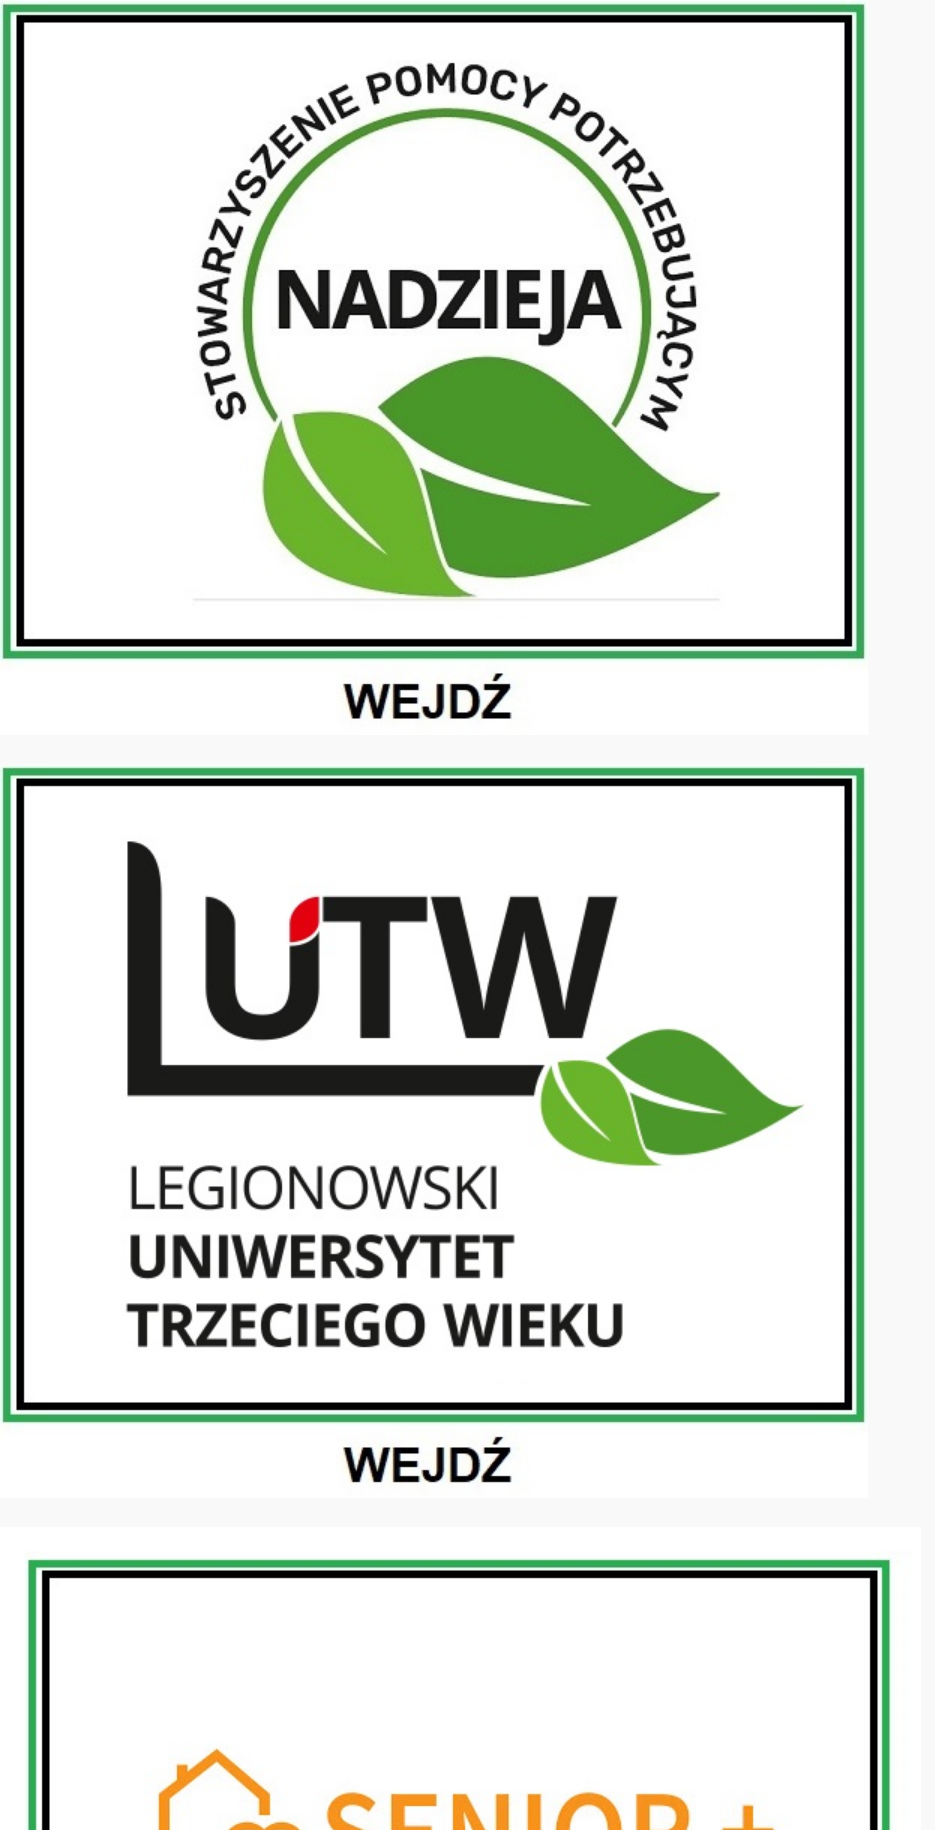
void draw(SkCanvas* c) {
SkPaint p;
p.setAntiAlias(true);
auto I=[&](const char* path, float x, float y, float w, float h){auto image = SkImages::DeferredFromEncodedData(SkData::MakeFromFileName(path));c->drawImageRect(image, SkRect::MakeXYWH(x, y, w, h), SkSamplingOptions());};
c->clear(0xfff9f9f9);
I("1.png",0,0,869,735);
I("2.png",0,764,868,734);
I("3.png",0,1527,921,303);
}
